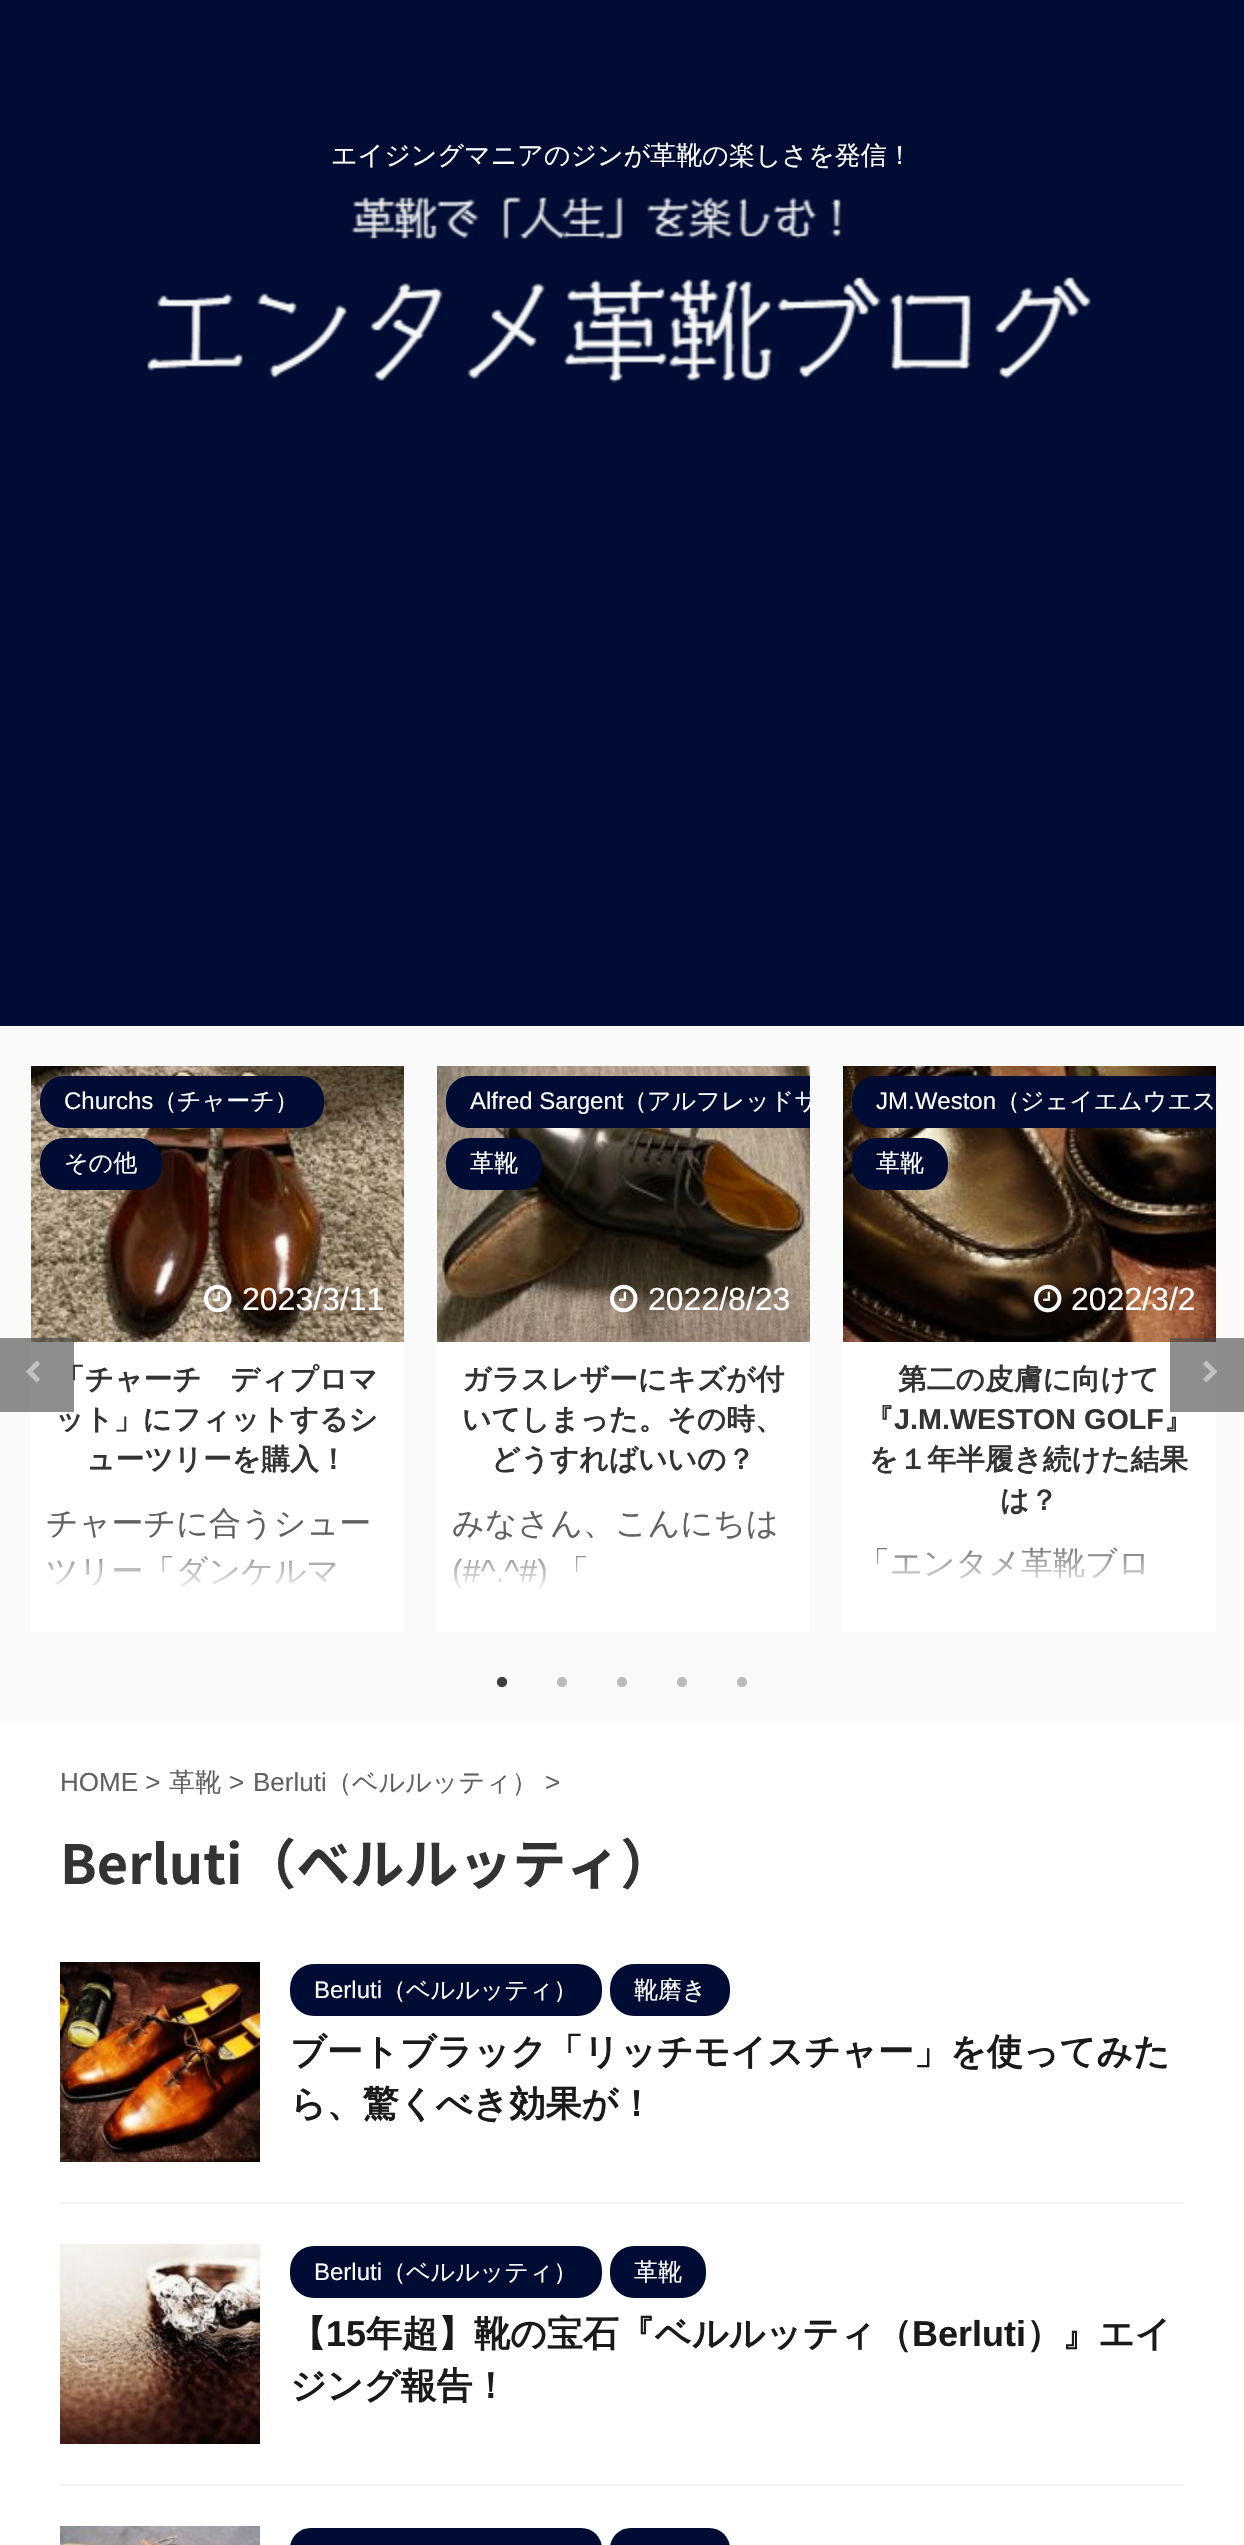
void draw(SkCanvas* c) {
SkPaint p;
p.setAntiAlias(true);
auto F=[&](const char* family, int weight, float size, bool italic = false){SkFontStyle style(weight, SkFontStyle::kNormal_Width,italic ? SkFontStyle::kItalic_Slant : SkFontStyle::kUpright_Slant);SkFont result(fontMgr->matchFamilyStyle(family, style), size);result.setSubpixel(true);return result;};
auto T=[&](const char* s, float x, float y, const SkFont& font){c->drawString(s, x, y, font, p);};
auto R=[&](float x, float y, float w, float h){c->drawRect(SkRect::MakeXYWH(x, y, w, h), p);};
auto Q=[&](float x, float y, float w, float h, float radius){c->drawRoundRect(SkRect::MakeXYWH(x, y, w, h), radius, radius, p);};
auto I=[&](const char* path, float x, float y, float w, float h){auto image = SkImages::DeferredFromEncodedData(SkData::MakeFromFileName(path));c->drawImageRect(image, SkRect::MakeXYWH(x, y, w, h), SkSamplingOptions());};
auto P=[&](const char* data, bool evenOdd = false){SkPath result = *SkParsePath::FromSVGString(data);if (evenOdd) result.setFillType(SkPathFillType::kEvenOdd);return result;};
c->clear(0xfffafafa);
p.setColor(0xff000c33);
R(0,0,1244,1026);
auto f1 = F("WenQuanYi Zen Hei",500,26);
p.setColor(0xffffffff);
T("エイジングマニアのジンが革靴の楽しさを発信！",331,164,f1);
I("1.png",147,197,944,186);
R(30,1066,374,566);
I("3.png",31,1066,373,276);
auto f2 = F("WenQuanYi Zen Hei",700,28.75);
p.setColor(0xff333333);
T("「チャーチ　ディプロマ",56,1389,f2);
T("ット」にフィットするシ",55,1429,f2);
p.setColor(0x99424242);
R(0,1338,74,74);
I("2.png",26,1360,14,23);
p.setColor(0xff000c33);
Q(40,1076,284,52,24);
auto f3 = F("Liberation Sans",400,24);
p.setColor(0xffffffff);
T("Churchs",64,1109,f3);
auto f4 = F("WenQuanYi Zen Hei",500,24);
T("（チャーチ）",153,1109,f4);
p.setColor(0xff000c33);
Q(40,1138,122,52,24);
p.setColor(0xffffffff);
T("その他",64,1171,f4);
I("4.png",204,1284,28,29);
auto f5 = F("Liberation Sans",400,32);
T("2023/3/11",242,1310,f5);
p.setColor(0xff333333);
T("ューツリーを購入！",86,1469,f2);
auto f6 = F("WenQuanYi Zen Hei",500,32);
p.setColor(0xff616161);
T("チャーチに合うシュー",46,1534,f6);
T("ツリー「ダンケルマ",46,1582,f6);
{
const SkColor colors[] = {0x00ffffff,0xffffffff};
const float stops[] = {0,1};
const SkPoint ends[] = {{217,1540}, {217,1592}};
p.setShader(SkGradientShader::MakeLinear(ends, colors, stops, 2, SkTileMode::kClamp));
p.setAlpha(255);
}
R(48,1556,288,31);
p.setShader(nullptr);
p.setColor(0xffffffff);
R(436,1066,374,566);
I("5.png",437,1066,373,276);
p.setColor(0xff000c33);
c->drawPath(P("M470 1076h340v52h-340c-13.5 0-24-10.5-24-24v-4c0-13.5 10.5-24 24-24z"),p);
p.setColor(0xffffffff);
T("Alfred Sargent",470,1109,f3);
c->save();
c->clipRect(SkRect::MakeXYWH(436,1066,374,276));
T("（アルフレッドサ",623,1109,f4);
c->restore();
p.setColor(0xff000c33);
Q(446,1138,96,52,24);
p.setColor(0xffffffff);
T("革靴",470,1171,f4);
I("6.png",610,1284,28,29);
T("2022/8/23",648,1310,f5);
p.setColor(0xff333333);
T("ガラスレザーにキズが付",462,1389,f2);
T("いてしまった。その時、",462,1429,f2);
T("どうすればいいの？",491,1469,f2);
p.setColor(0xff616161);
T("みなさん、こんにちは",452,1534,f6);
T("(#^.^#)",452,1582,f5);
T("「",557,1582,f6);
{
const SkColor colors[] = {0x00ffffff,0xffffffff};
const float stops[] = {0,1};
const SkPoint ends[] = {{623,1540}, {623,1592}};
p.setShader(SkGradientShader::MakeLinear(ends, colors, stops, 2, SkTileMode::kClamp));
p.setAlpha(255);
}
R(454,1556,132,33);
p.setShader(nullptr);
p.setColor(0xffffffff);
R(842,1066,374,566);
I("7.png",843,1066,373,276);
p.setColor(0xff000c33);
c->drawPath(P("M876 1076h340v52h-340c-13.5 0-24-10.5-24-24v-4c0-13.5 10.5-24 24-24z"),p);
p.setColor(0xffffffff);
T("JM.Weston",876,1109,f3);
T("（ジェイエムウエス",996,1109,f4);
p.setColor(0xff000c33);
Q(852,1138,96,52,24);
p.setColor(0xffffffff);
T("革靴",876,1171,f4);
I("8.png",1034,1284,28,29);
T("2022/3/2",1071,1310,f5);
p.setColor(0xff333333);
T("第二の皮膚に向けて",898,1389,f2);
T("『",865,1429,f2);
auto f7 = F("Liberation Sans",700,28.75);
T("J.M.WESTON GOLF",894,1429,f7);
T("』",1164,1429,f2);
T("を１年半履き続けた結果",869,1469,f2);
T("は？",1000,1510,f2);
p.setColor(0xff616161);
T("「エンタメ革靴ブロ",858,1574,f6);
{
const SkColor colors[] = {0x00ffffff,0xffffffff};
const float stops[] = {0,1};
const SkPoint ends[] = {{1029,1540}, {1029,1592}};
p.setShader(SkGradientShader::MakeLinear(ends, colors, stops, 2, SkTileMode::kClamp));
p.setAlpha(255);
}
R(877,1547,267,32);
p.setShader(nullptr);
p.setColor(0x99424242);
R(1170,1338,74,74);
I("9.png",1203,1360,14,23);
I("10.png",496,1676,12,12);
I("11.png",557,1677,10,10);
I("11.png",617,1677,10,10);
I("11.png",677,1677,10,10);
I("11.png",737,1677,10,10);
p.setColor(0xffffffff);
R(0,1722,1244,823);
auto f8 = F("Liberation Sans",400,26);
p.setColor(0xff616161);
T("HOME >",60,1791,f8);
T("革靴",169,1791,f1);
T(">",229,1791,f8);
T("Berluti",253,1791,f8);
T("（ベルルッティ）",326,1791,f1);
T(">",545,1791,f8);
auto f9 = F("Noto Sans JP",700,54);
p.setColor(0xff333333);
T("Berluti（ベルルッティ）",60,1884,f9);
p.setColor(0xfff3f3f3);
R(60,2202,1124,2);
I("12.png",60,1962,200,200);
p.setColor(0xff000c33);
Q(290,1964,312,52,24);
p.setColor(0xffffffff);
T("Berluti",314,1998,f3);
T("（ベルルッティ）",382,1998,f4);
p.setColor(0xff000c33);
Q(610,1964,120,52,24);
p.setColor(0xffffffff);
T("靴磨き",634,1998,f4);
auto f10 = F("WenQuanYi Zen Hei",700,36);
p.setColor(0xff1a1a1a);
T("ブートブラック「リッチモイスチャー」を使ってみた",290,2064,f10);
T("ら、驚くべき効果が！",290,2116,f10);
p.setColor(0xfff3f3f3);
R(60,2484,1124,2);
I("13.png",60,2244,200,200);
p.setColor(0xff000c33);
Q(290,2246,312,52,24);
p.setColor(0xffffffff);
T("Berluti",314,2280,f3);
T("（ベルルッティ）",382,2280,f4);
p.setColor(0xff000c33);
Q(610,2246,96,52,24);
p.setColor(0xffffffff);
T("革靴",634,2280,f4);
p.setColor(0xff1a1a1a);
T("【",290,2346,f10);
auto f11 = F("Liberation Sans",700,36);
T("15",326,2346,f11);
T("年超】靴の宝石『ベルルッティ（",366,2346,f10);
T("Berluti",912,2346,f11);
T("）』エイ",1026,2346,f10);
T("ジング報告！",290,2398,f10);
I("14.png",60,2526,200,19);
p.setColor(0xff000c33);
Q(290,2528,312,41,24);
Q(610,2528,120,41,24);
}
